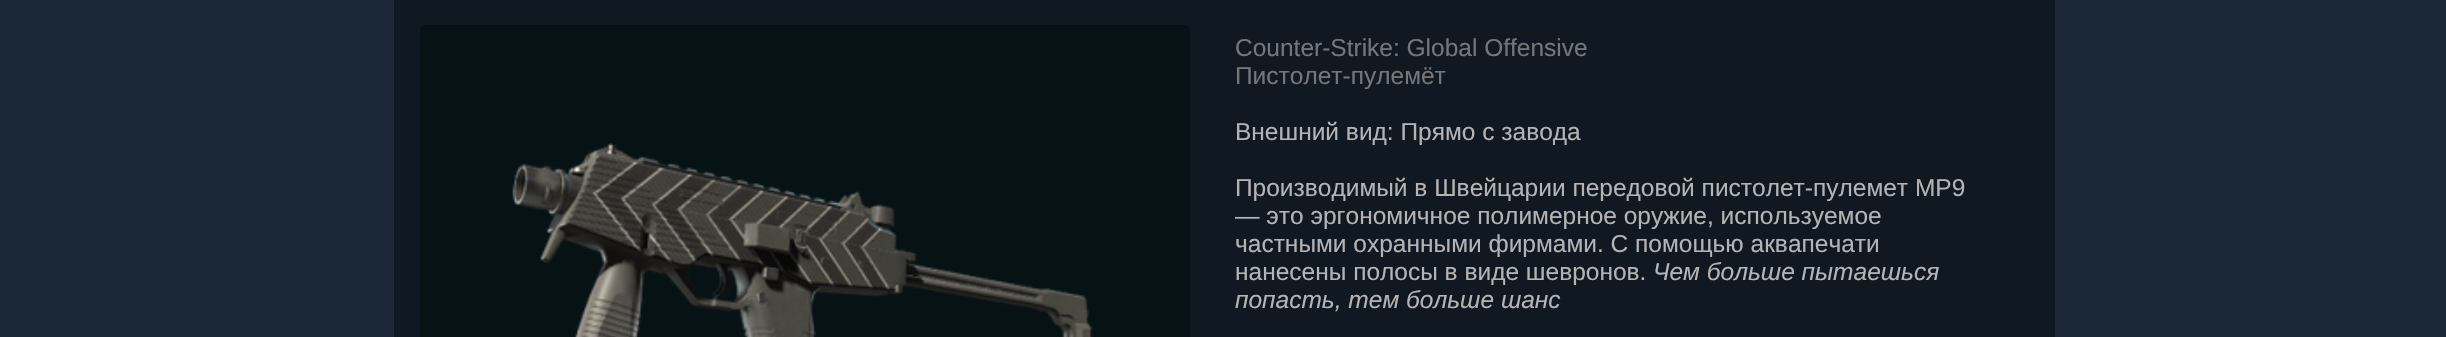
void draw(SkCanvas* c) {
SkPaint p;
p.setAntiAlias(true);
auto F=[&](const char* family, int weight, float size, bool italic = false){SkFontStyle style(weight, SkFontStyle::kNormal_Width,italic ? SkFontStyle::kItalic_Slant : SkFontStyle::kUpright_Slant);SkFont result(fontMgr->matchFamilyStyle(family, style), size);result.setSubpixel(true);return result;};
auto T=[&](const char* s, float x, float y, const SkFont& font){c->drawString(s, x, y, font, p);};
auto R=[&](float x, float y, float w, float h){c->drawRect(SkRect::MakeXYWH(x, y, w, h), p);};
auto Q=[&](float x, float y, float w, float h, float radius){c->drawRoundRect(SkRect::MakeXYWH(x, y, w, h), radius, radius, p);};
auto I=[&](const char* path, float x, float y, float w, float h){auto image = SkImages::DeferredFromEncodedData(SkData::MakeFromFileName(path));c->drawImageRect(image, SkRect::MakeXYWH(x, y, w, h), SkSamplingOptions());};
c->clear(0xff1b2838);
p.setColor(0xff101822);
R(394,0,1661,337);
p.setColor(0xff071215);
Q(420,25,770,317,5);
I("1.png",512,143,581,194);
auto f1 = F("Liberation Sans",400,24.5);
p.setColor(0xff767676);
T("Counter-Strike: Global Offensive",1235,56,f1);
T("Пистолет-пулемёт",1235,84,f1);
p.setColor(0xffb4b4b4);
T("Внешний вид: Прямо с завода",1235,140,f1);
T("Производимый в Швейцарии передовой пистолет-пулемет МР9",1235,196,f1);
T("— это эргономичное полимерное оружие, используемое",1235,224,f1);
T("частными охранными фирмами. С помощью аквапечати",1235,252,f1);
T("нанесены полосы в виде шевронов.",1235,280,f1);
auto f2 = F("Liberation Sans",400,24.5,true);
T("Чем больше пытаешься",1653,280,f2);
T("попасть, тем больше шанс",1235,308,f2);
}
